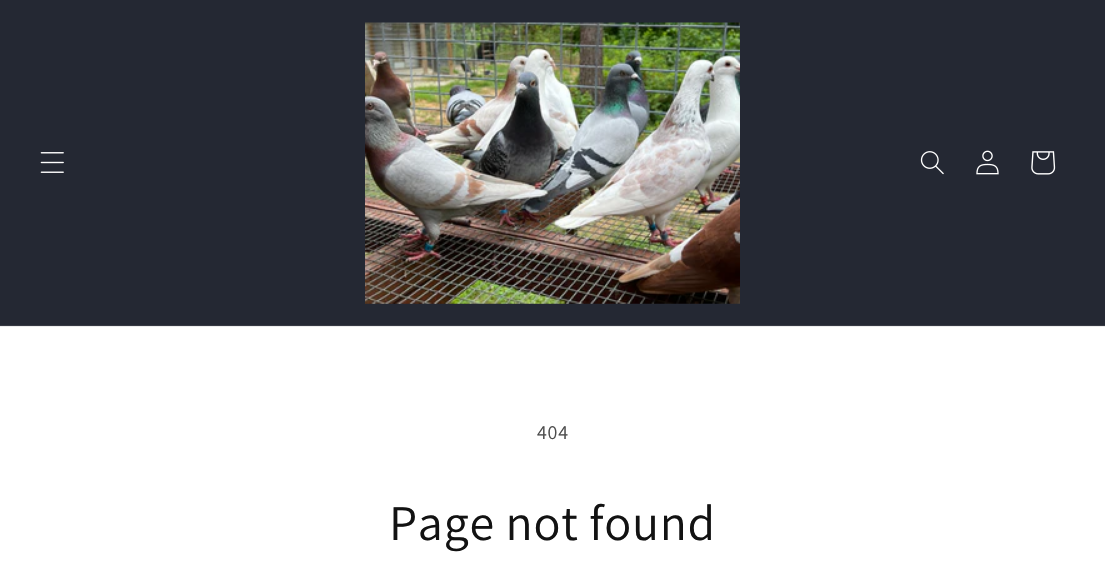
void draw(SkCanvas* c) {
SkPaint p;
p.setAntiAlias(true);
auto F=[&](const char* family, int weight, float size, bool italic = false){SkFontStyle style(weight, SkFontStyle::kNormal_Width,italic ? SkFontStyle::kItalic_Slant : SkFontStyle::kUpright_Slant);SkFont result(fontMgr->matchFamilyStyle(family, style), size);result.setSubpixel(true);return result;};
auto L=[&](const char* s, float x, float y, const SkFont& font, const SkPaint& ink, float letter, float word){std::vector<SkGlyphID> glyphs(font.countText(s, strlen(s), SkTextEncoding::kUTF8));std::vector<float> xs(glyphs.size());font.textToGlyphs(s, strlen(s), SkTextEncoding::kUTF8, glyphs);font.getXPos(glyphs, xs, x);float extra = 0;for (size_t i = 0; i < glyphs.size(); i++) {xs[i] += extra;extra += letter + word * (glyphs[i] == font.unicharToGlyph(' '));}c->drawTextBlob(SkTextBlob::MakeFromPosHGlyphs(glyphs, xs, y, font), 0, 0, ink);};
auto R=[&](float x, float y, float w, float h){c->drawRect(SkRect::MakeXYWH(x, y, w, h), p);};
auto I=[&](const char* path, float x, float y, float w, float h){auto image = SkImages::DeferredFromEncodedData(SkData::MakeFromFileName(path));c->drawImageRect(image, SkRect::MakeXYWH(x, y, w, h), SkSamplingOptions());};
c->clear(0xffffffff);
p.setColor(0xff242833);
R(0,0,1105,325);
p.setColor(0xff363943);
R(0,325,1105,1);
I("1.png",40,152,24,21);
I("2.png",365,22,375,282);
I("3.png",920,151,24,24);
I("4.png",976,150,23,25);
I("5.png",1031,151,25,24);
p.setColor(0xffececec);
R(0,326,1105,1);
auto f1 = F("Assistant",400,20);
p.setColor(0xff4d4d4d);
L("404",537,439,f1,p,.75,0);
auto f2 = F("Assistant",400,50);
p.setColor(0xff121212);
L("Page not found",389,540,f2,p,.75,0);
}
